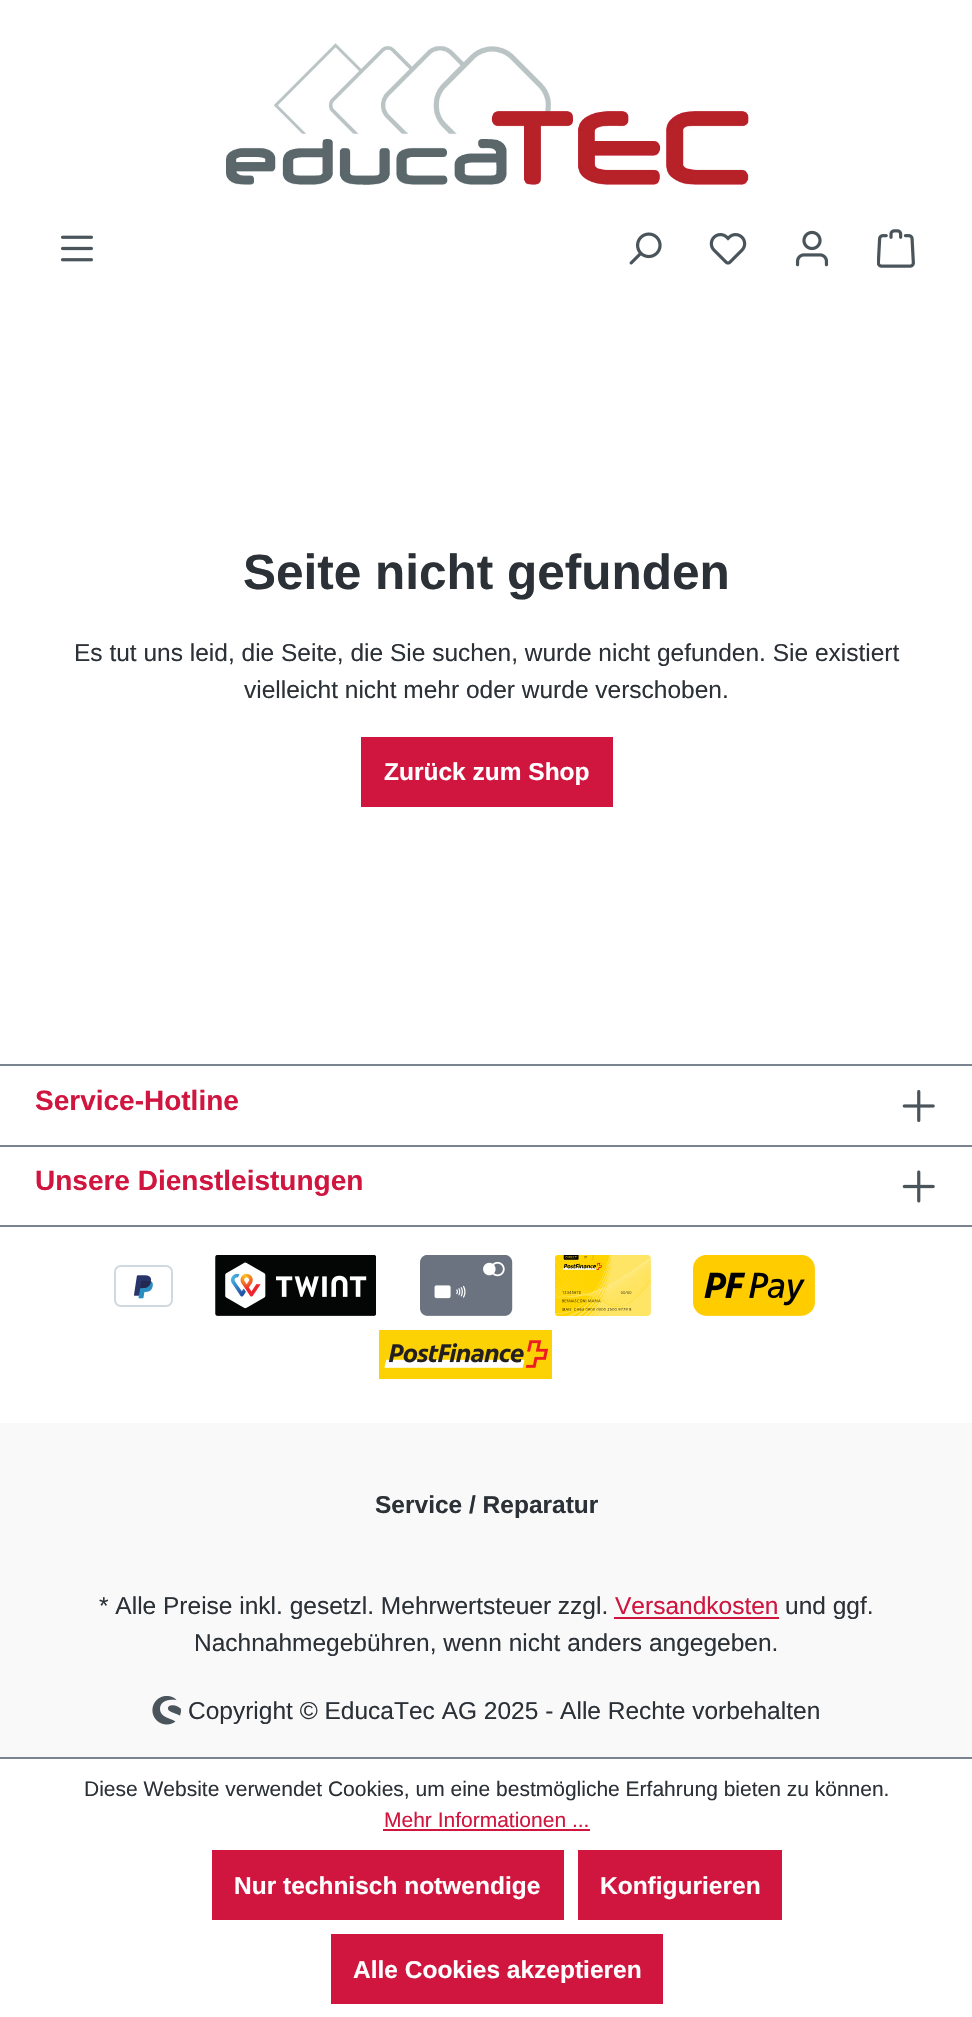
void draw(SkCanvas* c) {
SkPaint p;
p.setAntiAlias(true);
auto F=[&](const char* family, int weight, float size, bool italic = false){SkFontStyle style(weight, SkFontStyle::kNormal_Width,italic ? SkFontStyle::kItalic_Slant : SkFontStyle::kUpright_Slant);SkFont result(fontMgr->matchFamilyStyle(family, style), size);result.setSubpixel(true);return result;};
auto T=[&](const char* s, float x, float y, const SkFont& font){c->drawString(s, x, y, font, p);};
auto R=[&](float x, float y, float w, float h){c->drawRect(SkRect::MakeXYWH(x, y, w, h), p);};
auto I=[&](const char* path, float x, float y, float w, float h){auto image = SkImages::DeferredFromEncodedData(SkData::MakeFromFileName(path));c->drawImageRect(image, SkRect::MakeXYWH(x, y, w, h), SkSamplingOptions());};
c->clear(0xffffffff);
I("1.png",226,43,523,142);
I("2.png",61,235,32,27);
I("3.png",629,232,33,33);
I("4.png",709,233,38,32);
I("5.png",795,230,34,37);
I("6.png",877,229,38,39);
auto f1 = F("Liberation Sans",700,49.5);
p.setColor(0xff2b3136);
T("Seite nicht gefunden",243,589,f1);
auto f2 = F("Liberation Sans",400,24.5);
T("Es tut uns leid, die Seite, die Sie suchen, wurde nicht gefunden. Sie existiert",74,661,f2);
T("vielleicht nicht mehr oder wurde verschoben.",244,698,f2);
p.setColor(0xffd0153f);
R(361,737,252,70);
auto f3 = F("Liberation Sans",700,24.5);
p.setColor(0xffffffff);
T("Zurück zum Shop",384,780,f3);
p.setColor(0xff798490);
R(0,1064,972,2);
R(0,1145,972,2);
auto f4 = F("Liberation Sans",700,28);
p.setColor(0xffd0153f);
T("Service-Hotline",35,1110,f4);
I("7.png",902,1090,33,32);
p.setColor(0xff798490);
R(0,1225,972,2);
p.setColor(0xffd0153f);
T("Unsere Dienstleistungen",35,1190,f4);
I("8.png",902,1170,33,33);
I("9.png",114,1265,59,42);
I("10.png",215,1255,161,61);
I("11.png",420,1255,93,61);
I("12.png",555,1255,96,61);
I("13.png",693,1255,122,61);
I("14.png",379,1330,173,49);
p.setColor(0xfff9f9f9);
R(0,1423,972,334);
p.setColor(0xff2b3136);
T("Service / Reparatur",375,1513,f3);
T("* Alle Preise inkl. gesetzl. Mehrwertsteuer zzgl.",99,1614,f2);
p.setColor(0xffd0153f);
T("Versandkosten",615,1614,f2);
R(614,1617,165,2);
p.setColor(0xff2b3136);
T("und ggf.",785,1614,f2);
T("Nachnahmegebühren, wenn nicht anders angegeben.",194,1651,f2);
I("15.png",152,1696,29,29);
T("Copyright © EducaTec AG 2025 - Alle Rechte vorbehalten",188,1719,f2);
p.setColor(0xff798490);
R(0,1757,972,2);
auto f5 = F("Liberation Sans",400,21);
p.setColor(0xff2b3136);
T("Diese Website verwendet Cookies, um eine bestmögliche Erfahrung bieten zu können.",84,1796,f5);
p.setColor(0xffd0153f);
T("Mehr Informationen ...",384,1827,f5);
R(383,1829,207,2);
R(212,1850,352,70);
p.setColor(0xffffffff);
T("Nur technisch notwendige",234,1894,f3);
p.setColor(0xffd0153f);
R(578,1850,204,70);
p.setColor(0xffffffff);
T("Konfigurieren",600,1894,f3);
p.setColor(0xffd0153f);
R(331,1934,332,70);
p.setColor(0xffffffff);
T("Alle Cookies akzeptieren",353,1978,f3);
}
